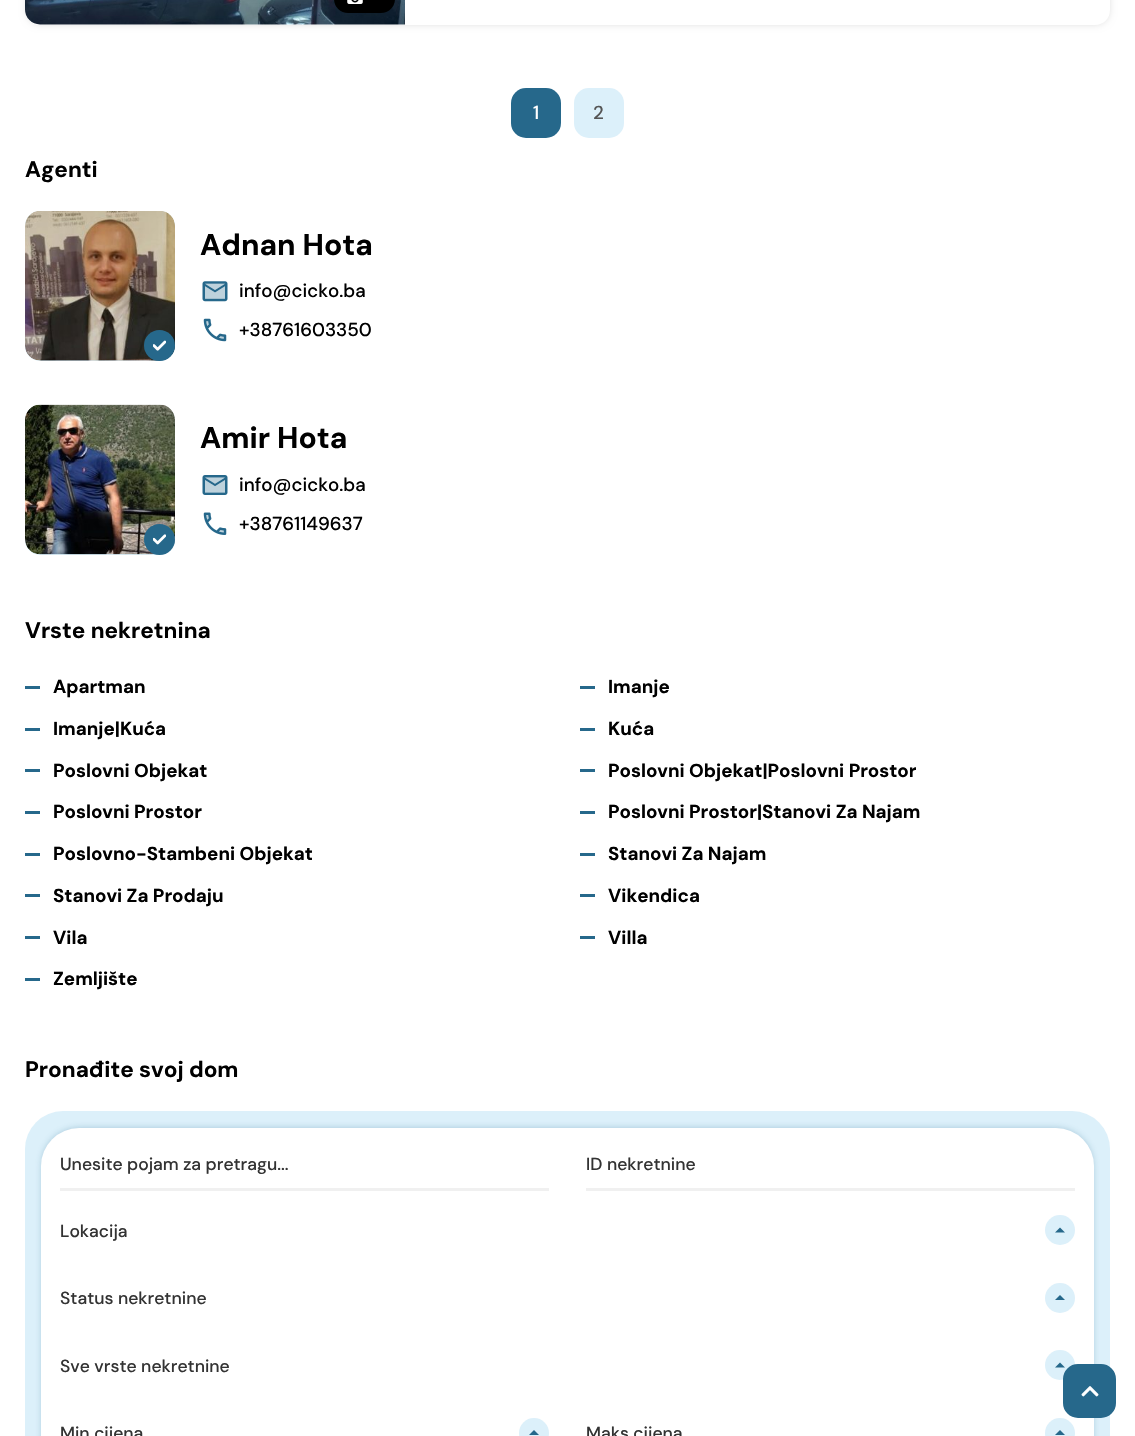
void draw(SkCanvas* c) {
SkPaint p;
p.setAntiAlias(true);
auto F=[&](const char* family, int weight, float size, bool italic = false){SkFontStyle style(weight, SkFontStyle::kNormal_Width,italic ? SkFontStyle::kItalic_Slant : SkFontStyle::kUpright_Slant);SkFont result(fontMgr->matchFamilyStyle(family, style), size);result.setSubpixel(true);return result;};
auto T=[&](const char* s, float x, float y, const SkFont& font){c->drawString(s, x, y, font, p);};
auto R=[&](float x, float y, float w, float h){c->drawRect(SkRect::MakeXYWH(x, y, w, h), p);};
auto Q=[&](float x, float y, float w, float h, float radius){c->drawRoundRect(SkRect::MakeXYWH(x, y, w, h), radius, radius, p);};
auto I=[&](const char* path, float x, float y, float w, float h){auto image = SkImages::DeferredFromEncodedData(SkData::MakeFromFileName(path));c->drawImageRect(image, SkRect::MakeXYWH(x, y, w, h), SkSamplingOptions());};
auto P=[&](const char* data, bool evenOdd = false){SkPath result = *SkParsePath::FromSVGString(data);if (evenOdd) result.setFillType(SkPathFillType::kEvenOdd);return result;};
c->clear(0xffffffff);
c->save();
c->clipPath(P("M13 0h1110v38h-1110zm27-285h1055c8.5 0 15 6.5 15 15v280c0 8.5-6.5 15-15 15h-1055c-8.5 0-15-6.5-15-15v-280c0-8.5 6.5-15 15-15z",true),true);
p.setColor(0x30000000);
p.setMaskFilter(SkMaskFilter::MakeBlur(kNormal_SkBlurStyle, 4.5));
c->drawRoundRect(SkRect::MakeXYWH(28,-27,1080,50),13,13,p);
p.setMaskFilter(nullptr);
c->restore();
I("2.png",25,0,380,25);
p.setColor(0xff000000);
Q(334,-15,61,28,15);
I("1.png",347,0,16,4);
p.setColor(0xff26688b);
Q(511,88,50,50,15);
auto f1 = F("DM Sans",500,18.75);
p.setColor(0xffffffff);
T("1",533,119,f1);
p.setColor(0xffdcf0fa);
Q(574,88,50,50,15);
p.setColor(0xff555555);
T("2",593,119,f1);
auto f2 = F("DM Sans",700,22.5);
p.setColor(0xff000000);
T("Agenti",25,177,f2);
p.setColor(0xffdcf0fa);
Q(25,211,150,150,15);
I("3.png",25,211,150,150);
p.setColor(0xff26688b);
c->drawCircle(159.5,345.5,15.5,p);
I("4.png",153,340,13,11);
auto f3 = F("DM Sans",700,30);
p.setColor(0xff000000);
T("Adnan Hota",200,255,f3);
I("5.png",202,281,26,21);
T("info@cicko.ba",239,297,f1);
I("6.png",203,318,24,24);
T("+38761603350",239,336,f1);
p.setColor(0xffdcf0fa);
Q(25,405,150,150,15);
I("7.png",25,404,150,151);
p.setColor(0xff26688b);
c->drawCircle(159.5,539.5,15.5,p);
I("8.png",153,534,13,11);
p.setColor(0xff000000);
T("Amir Hota",200,448,f3);
I("9.png",202,475,26,20);
T("info@cicko.ba",239,491,f1);
I("10.png",203,512,24,23);
T("+38761149637",239,530,f1);
T("Vrste nekretnina",25,638,f2);
p.setColor(0xff26688b);
R(25,686,15,3);
auto f4 = F("DM Sans",700,18.75);
p.setColor(0xff000000);
T("Apartman",53,693,f4);
p.setColor(0xff26688b);
R(580,686,15,3);
p.setColor(0xff000000);
T("Imanje",608,693,f4);
p.setColor(0xff26688b);
R(25,728,15,3);
p.setColor(0xff000000);
T("Imanje|Kuća",53,735,f4);
p.setColor(0xff26688b);
R(580,728,15,3);
p.setColor(0xff000000);
T("Kuća",608,735,f4);
p.setColor(0xff26688b);
R(25,769,15,3);
p.setColor(0xff000000);
T("Poslovni Objekat",53,777,f4);
p.setColor(0xff26688b);
R(580,769,15,3);
p.setColor(0xff000000);
T("Poslovni Objekat|Poslovni Prostor",608,777,f4);
p.setColor(0xff26688b);
R(25,811,15,3);
p.setColor(0xff000000);
T("Poslovni Prostor",53,818,f4);
p.setColor(0xff26688b);
R(580,811,15,3);
p.setColor(0xff000000);
T("Poslovni Prostor|Stanovi Za Najam",608,818,f4);
p.setColor(0xff26688b);
R(25,853,15,3);
p.setColor(0xff000000);
T("Poslovno-Stambeni Objekat",53,860,f4);
p.setColor(0xff26688b);
R(580,853,15,3);
p.setColor(0xff000000);
T("Stanovi Za Najam",608,860,f4);
p.setColor(0xff26688b);
R(25,894,15,3);
p.setColor(0xff000000);
T("Stanovi Za Prodaju",53,902,f4);
p.setColor(0xff26688b);
R(580,894,15,3);
p.setColor(0xff000000);
T("Vikendica",608,902,f4);
p.setColor(0xff26688b);
R(25,936,15,3);
p.setColor(0xff000000);
T("Vila",53,944,f4);
p.setColor(0xff26688b);
R(580,936,15,3);
p.setColor(0xff000000);
T("Villa",608,944,f4);
p.setColor(0xff26688b);
R(25,978,15,3);
p.setColor(0xff000000);
T("Zemljište",53,985,f4);
T("Pronađite svoj dom",25,1077,f2);
p.setColor(0xffdcf0fa);
Q(25,1111,1085,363,38);
p.setColor(0x8026688b);
p.setMaskFilter(SkMaskFilter::MakeBlur(kNormal_SkBlurStyle, 4.5));
c->drawRoundRect(SkRect::MakeXYWH(44,1130,1047,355),35,35,p);
p.setMaskFilter(nullptr);
p.setColor(0xffffffff);
Q(41,1128,1053,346,38);
p.setColor(0xfff0f0f0);
R(60,1188,489,3);
auto f5 = F("DM Sans",500,17.5);
p.setColor(0xff333333);
T("Unesite pojam za pretragu...",60,1170,f5);
p.setColor(0xfff0f0f0);
R(586,1188,489,3);
p.setColor(0xff333333);
T("ID nekretnine",586,1170,f5);
T("Lokacija",60,1237,f5);
p.setColor(0xffdcf0fa);
c->drawCircle(1060,1230,15,p);
p.setColor(0xff26688b);
c->drawPath(P("M1065 1232.5h-10l5-5z"),p);
p.setColor(0xff333333);
T("Status nekretnine",60,1304,f5);
p.setColor(0xffdcf0fa);
c->drawCircle(1060,1298,15,p);
p.setColor(0xff26688b);
c->drawPath(P("M1065 1300h-10l5-5z"),p);
p.setColor(0xff333333);
T("Sve vrste nekretnine",60,1372,f5);
p.setColor(0xffdcf0fa);
c->drawCircle(1060,1365,15,p);
p.setColor(0xff26688b);
c->drawPath(P("M1065 1367.5h-10l5-5z"),p);
p.setColor(0xff333333);
T("Min cijena",60,1439,f5);
p.setColor(0xffdcf0fa);
c->drawCircle(534,1433,15,p);
p.setColor(0xff26688b);
c->drawPath(P("M539 1435h-10l5-5z"),p);
p.setColor(0xff333333);
T("Maks cijena",586,1439,f5);
p.setColor(0xffdcf0fa);
c->drawCircle(1060,1433,15,p);
p.setColor(0xff26688b);
c->drawPath(P("M1065 1435h-10l5-5z"),p);
c->drawRoundRect(SkRect::MakeXYWH(1064.5,1365.5,50,51),13.5,13.5,p);
p.setStroke(true);
p.setStrokeWidth(3);
c->drawRoundRect(SkRect::MakeXYWH(1064.5,1365.5,50,51),13.5,13.5,p);
I("11.png",1081,1386,18,11);
}
